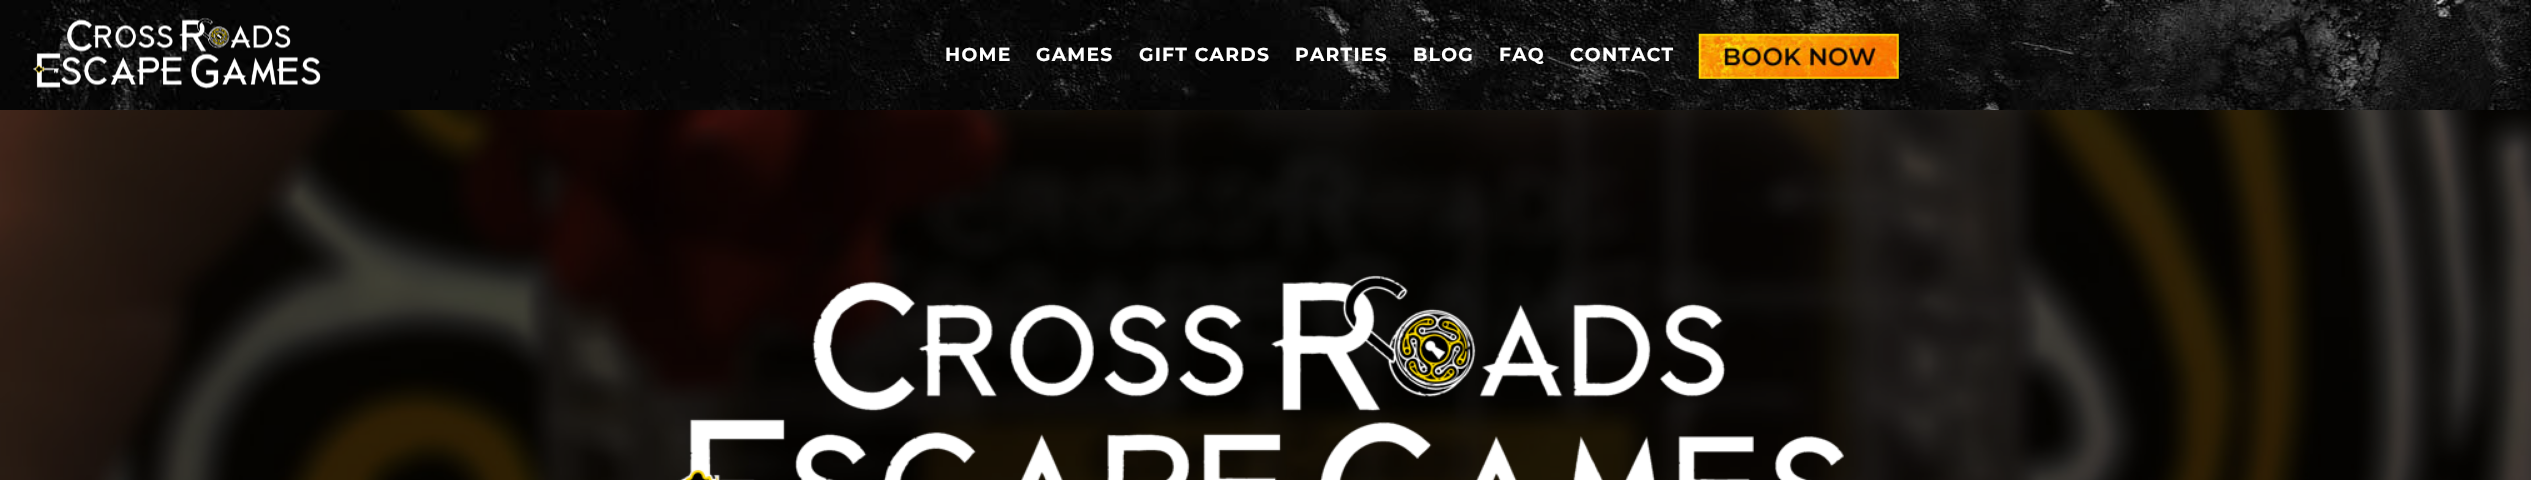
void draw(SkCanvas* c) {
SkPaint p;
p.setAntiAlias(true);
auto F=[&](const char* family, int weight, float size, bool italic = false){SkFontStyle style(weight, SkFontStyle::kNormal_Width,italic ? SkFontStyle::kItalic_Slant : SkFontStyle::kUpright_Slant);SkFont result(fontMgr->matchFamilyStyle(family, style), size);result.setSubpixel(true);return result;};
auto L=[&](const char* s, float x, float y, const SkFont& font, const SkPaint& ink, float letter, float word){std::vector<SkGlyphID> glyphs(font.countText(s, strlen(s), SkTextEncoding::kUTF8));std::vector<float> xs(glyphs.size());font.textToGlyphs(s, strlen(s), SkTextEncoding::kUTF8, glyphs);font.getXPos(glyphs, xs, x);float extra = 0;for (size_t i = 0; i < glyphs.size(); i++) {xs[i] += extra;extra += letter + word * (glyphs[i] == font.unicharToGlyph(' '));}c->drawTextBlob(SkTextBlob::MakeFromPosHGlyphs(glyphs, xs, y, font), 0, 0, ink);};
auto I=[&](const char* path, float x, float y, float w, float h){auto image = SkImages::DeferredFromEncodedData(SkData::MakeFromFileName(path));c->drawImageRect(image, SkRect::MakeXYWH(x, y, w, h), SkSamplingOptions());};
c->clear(0xffffffff);
I("1.png",0,0,2531,110);
I("2.png",33,17,288,72);
auto f1 = F("Montserrat",700,18.75);
p.setColor(0xffffffff);
L("HOME",945,61,f1,p,1.25,0);
L("GAMES",1036,61,f1,p,1.25,0);
L("GIFT CARDS",1139,61,f1,p,1.25,0);
L("PARTIES",1295,61,f1,p,1.25,0);
L("BLOG",1413,61,f1,p,1.25,0);
L("FAQ",1499,61,f1,p,1.25,0);
L("CONTACT",1570,61,f1,p,1.25,0);
I("3.png",1698,33,201,46);
I("4.png",0,110,2531,370);
I("5.png",678,275,1166,205);
}
